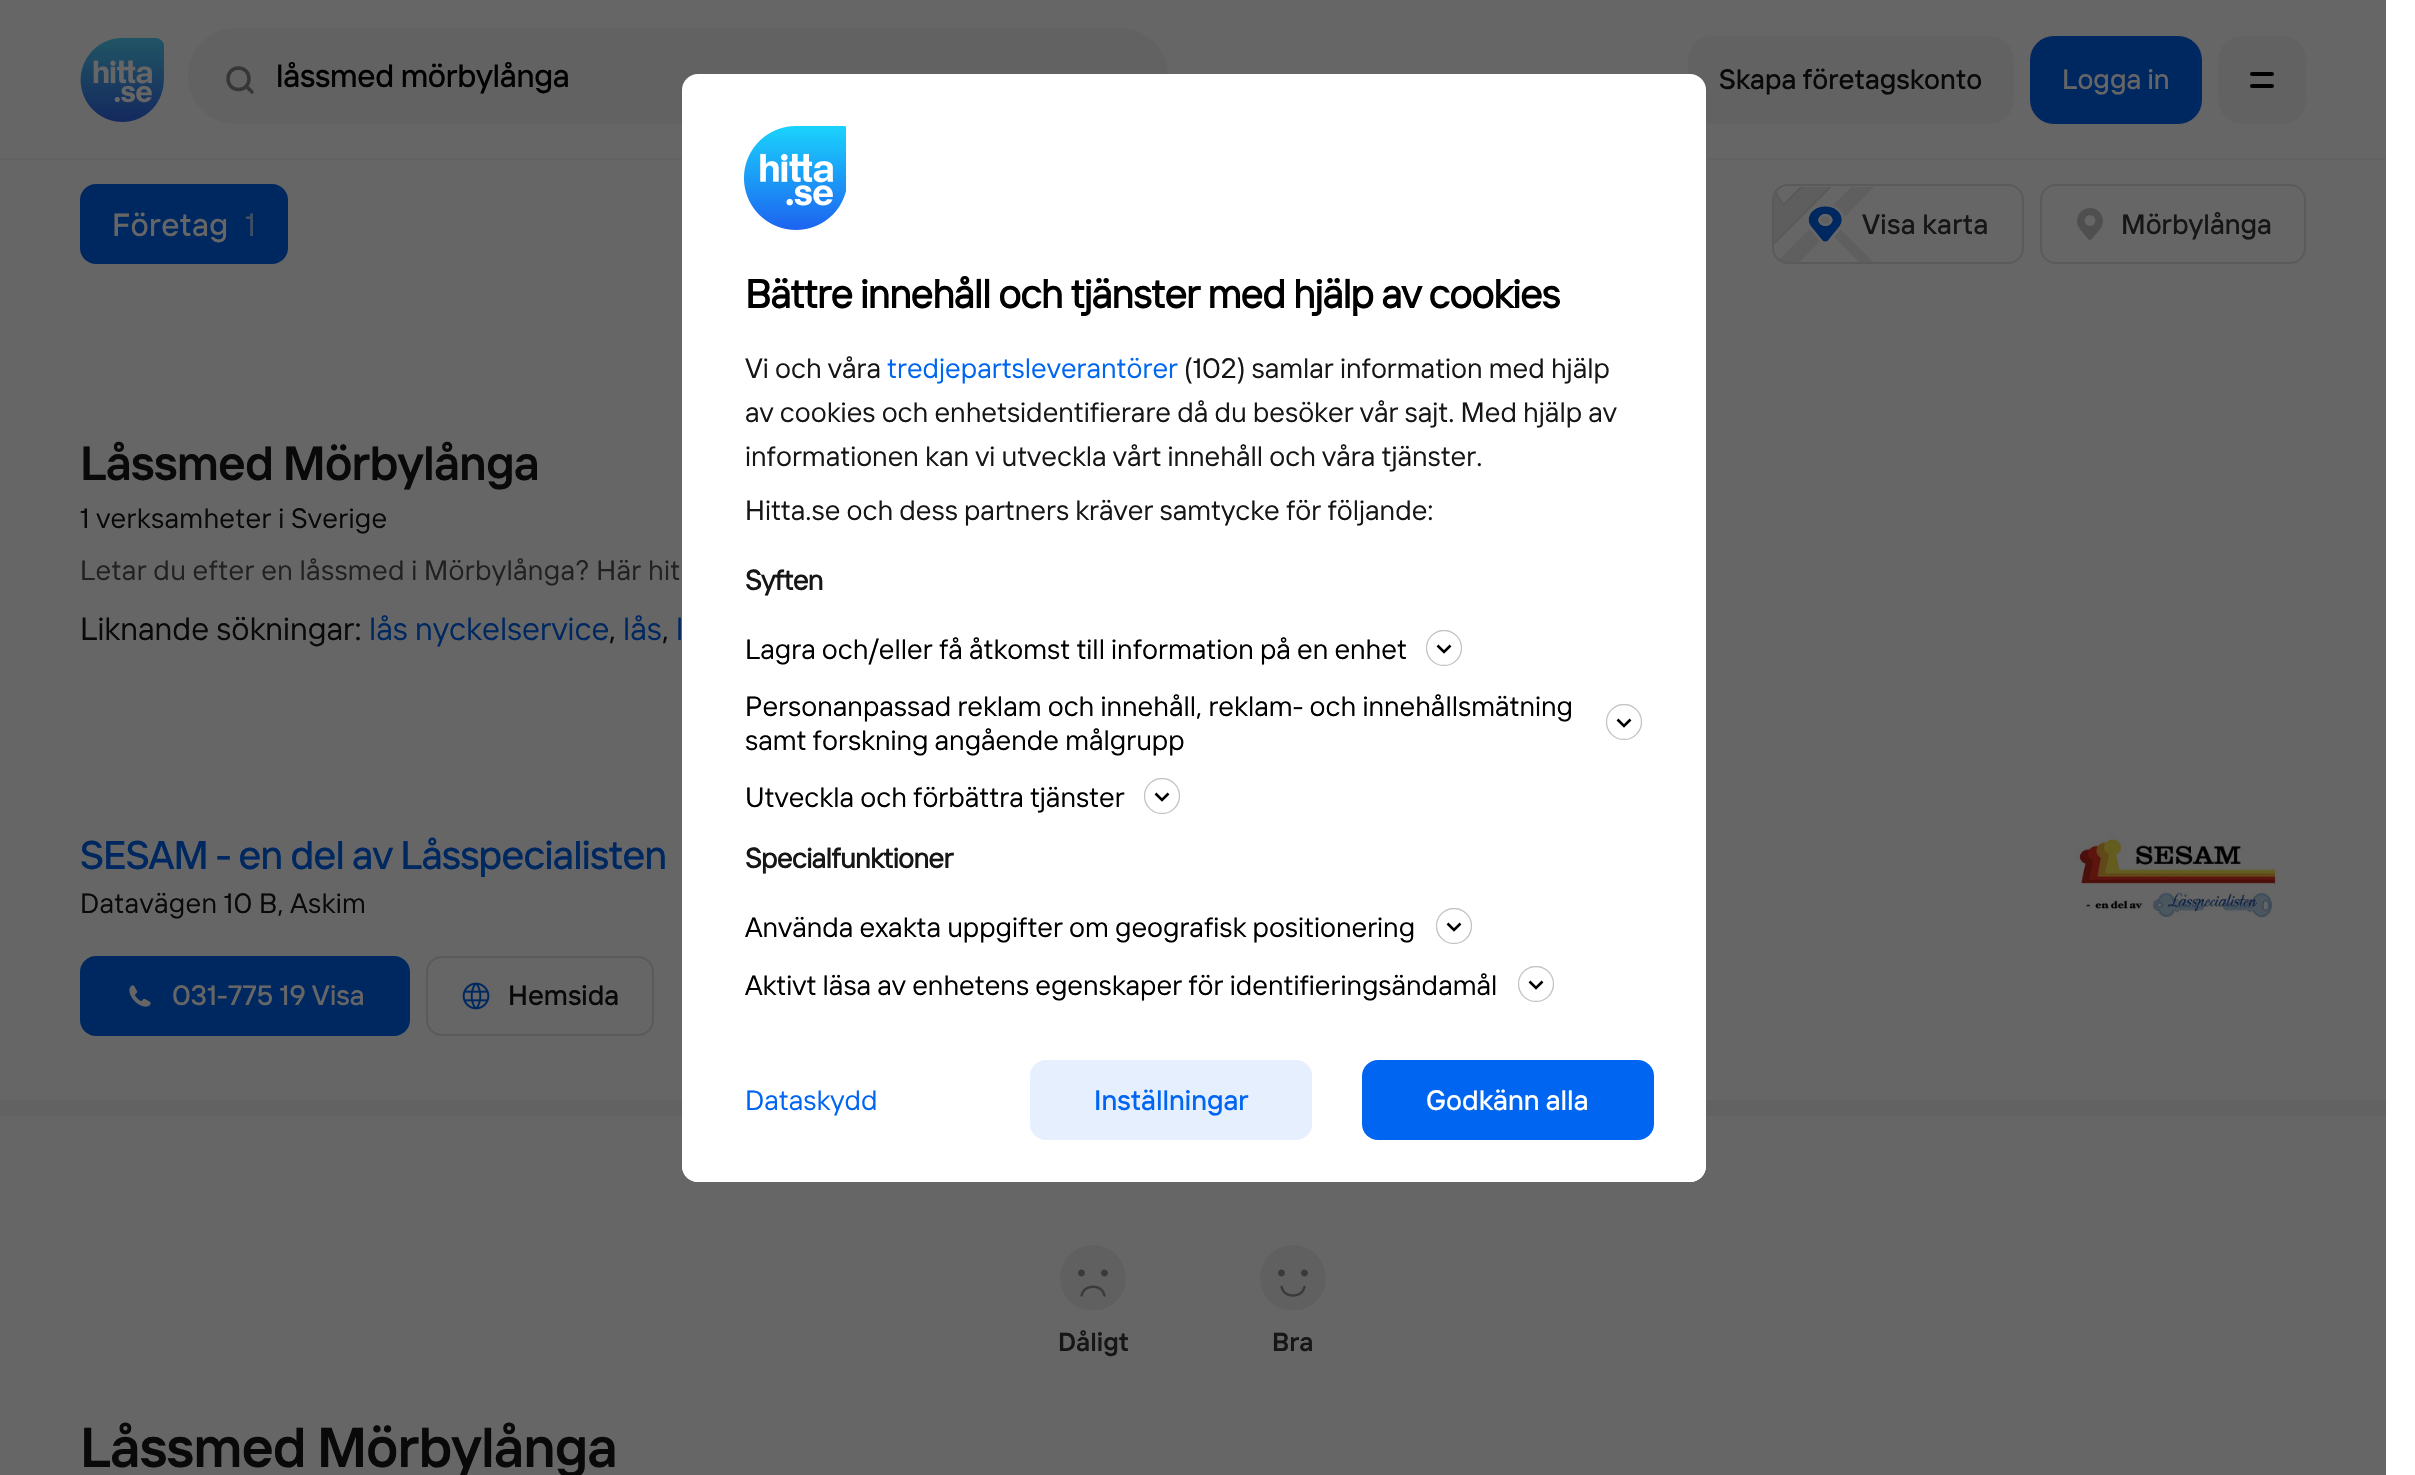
void draw(SkCanvas* c) {
SkPaint p;
p.setAntiAlias(true);
auto F=[&](const char* family, int weight, float size, bool italic = false){SkFontStyle style(weight, SkFontStyle::kNormal_Width,italic ? SkFontStyle::kItalic_Slant : SkFontStyle::kUpright_Slant);SkFont result(fontMgr->matchFamilyStyle(family, style), size);result.setSubpixel(true);return result;};
auto T=[&](const char* s, float x, float y, const SkFont& font){c->drawString(s, x, y, font, p);};
auto L=[&](const char* s, float x, float y, const SkFont& font, const SkPaint& ink, float letter, float word){std::vector<SkGlyphID> glyphs(font.countText(s, strlen(s), SkTextEncoding::kUTF8));std::vector<float> xs(glyphs.size());font.textToGlyphs(s, strlen(s), SkTextEncoding::kUTF8, glyphs);font.getXPos(glyphs, xs, x);float extra = 0;for (size_t i = 0; i < glyphs.size(); i++) {xs[i] += extra;extra += letter + word * (glyphs[i] == font.unicharToGlyph(' '));}c->drawTextBlob(SkTextBlob::MakeFromPosHGlyphs(glyphs, xs, y, font), 0, 0, ink);};
auto R=[&](float x, float y, float w, float h){c->drawRect(SkRect::MakeXYWH(x, y, w, h), p);};
auto Q=[&](float x, float y, float w, float h, float radius){c->drawRoundRect(SkRect::MakeXYWH(x, y, w, h), radius, radius, p);};
auto I=[&](const char* path, float x, float y, float w, float h){auto image = SkImages::DeferredFromEncodedData(SkData::MakeFromFileName(path));c->drawImageRect(image, SkRect::MakeXYWH(x, y, w, h), SkSamplingOptions());};
auto P=[&](const char* data, bool evenOdd = false){SkPath result = *SkParsePath::FromSVGString(data);if (evenOdd) result.setFillType(SkPathFillType::kEvenOdd);return result;};
c->clear(0xffffffff);
p.setColor(0xff666666);
R(0,0,2386,1475);
p.setColor(0xff626262);
R(0,158,2386,2);
I("1.png",80,38,84,84);
Q(188,28,980,96,48);
p.setStroke(true);
p.setStrokeWidth(3.5);
p.setStrokeCap(SkPaint::kRound_Cap);
p.setStrokeJoin(SkPaint::kRound_Join);
p.setColor(0xff363636);
c->drawPath(P("M252 92l-6-6m-7.5 3.5c14 0 14-21.5 0-21.5c-14 0-14 21.5 0 21.5z"),p);
auto f1 = F("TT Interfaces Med",500,32);
p.setStroke(false);
p.setColor(0xff000000);
L("låssmed mörbylånga",276,87,f1,p,-.3,0);
p.setColor(0xff626262);
Q(1688,36,326,88,24);
auto f2 = F("TT Interfaces Med",500,28);
p.setColor(0xff090909);
T("Skapa företagskonto",1719,89,f2);
p.setColor(0xff002860);
Q(2030,36,172,88,24);
p.setColor(0xff666666);
T("Logga in",2062,89,f2);
p.setColor(0xff626262);
Q(2218,36,88,88,24);
p.setStroke(true);
p.setStrokeWidth(4);
p.setColor(0xff000000);
c->drawPath(P("M2252 74h20m-20 12h20"),p);
p.setStroke(false);
p.setColor(0xff002860);
Q(80,184,208,80,16);
p.setColor(0xff666666);
L("Företag",112,236,f1,p,.3,0);
auto f3 = F("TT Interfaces",400,32);
p.setColor(0xff3d4d64);
L("1",245,236,f3,p,.3,0);
I("2.png",1774,187,101,77);
p.setStroke(true);
p.setStrokeWidth(2);
p.setStrokeCap(SkPaint::kButt_Cap);
p.setStrokeJoin(SkPaint::kMiter_Join);
p.setColor(0xff5a5a5a);
c->drawRoundRect(SkRect::MakeXYWH(1773,185,250,78),15,15,p);
I("3.png",1808,205,36,37);
p.setStroke(false);
p.setColor(0xff161616);
L("Visa karta",1862,234,f2,p,.3,0);
p.setStroke(true);
p.setColor(0xff5a5a5a);
c->drawRoundRect(SkRect::MakeXYWH(2041,185,264,78),15,15,p);
I("4.png",2077,208,26,32);
p.setStroke(false);
p.setColor(0xff161616);
T("Mörbylånga",2121,234,f2);
auto f4 = F("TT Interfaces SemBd",600,48);
p.setColor(0xff090909);
L("Låssmed Mörbylånga",80,480,f4,p,-1,0);
auto f5 = F("TT Interfaces",400,28);
L("1 verksamheter i Sverige",80,528,f5,p,.3,0);
p.setColor(0xff212121);
L("Letar du efter en låssmed i Mörbylånga? Här hit",80,580,f5,p,.3,0);
p.setColor(0xff090909);
T("Liknande sökningar:",80,640,f3);
p.setColor(0xff002860);
T("lås nyckelservice",369,640,f3);
p.setColor(0xff090909);
T(",",609,640,f3);
p.setColor(0xff002860);
T("lås",623,640,f3);
p.setColor(0xff090909);
T(",",662,640,f3);
p.setColor(0xff002860);
T("l",676,640,f3);
p.setColor(0xff626262);
R(0,1100,2386,16);
auto f6 = F("TT Interfaces Med",500,40);
p.setColor(0xff002860);
L("SESAM - en del av Låsspecialisten",80,869,f6,p,-.8,0);
I("5.png",2075,834,203,84);
p.setColor(0xff090909);
L("Datavägen 10 B, Askim",80,913,f5,p,.3,0);
p.setColor(0xff002860);
Q(80,956,330,80,16);
I("6.png",129,985,22,22);
p.setColor(0xff666666);
T("031-775 19 Visa",172,1005,f2);
p.setStroke(true);
p.setColor(0xff5a5a5a);
c->drawRoundRect(SkRect::MakeXYWH(427,957,226,78),15,15,p);
I("7.png",462,982,28,28);
p.setStroke(false);
p.setColor(0xff090909);
T("Hemsida",508,1005,f2);
I("8.png",1060,1245,66,65);
auto f7 = F("TT Interfaces SemBd",600,26);
p.setColor(0xff161616);
T("Dåligt",1058,1351,f7);
I("9.png",1260,1245,66,65);
T("Bra",1272,1351,f7);
auto f8 = F("TT Interfaces SemBd",600,56);
p.setColor(0xff090909);
L("Låssmed Mörbylånga",80,1467,f8,p,-1.1,0);
p.setColor(0xffffffff);
Q(682,74,1024,1108,16);
I("10.png",744,126,102,104);
auto f9 = F("TT Interfaces",700,40);
p.setColor(0xff000000);
L("Bättre innehåll och tjänster med hjälp av cookies",745,308,f9,p,-.8,0);
p.setColor(0xff161616);
T("Vi och våra",745,378,f5);
p.setColor(0xff0065f1);
T("tredjepartsleverantörer",887,378,f5);
p.setColor(0xff161616);
T("(102) samlar information med hjälp",1184,378,f5);
T("av cookies och enhetsidentifierare då du besöker vår sajt. Med hjälp av",745,422,f5);
T("informationen kan vi utveckla vårt innehåll och våra tjänster.",745,466,f5);
T("Hitta.se och dess partners kräver samtycke för följande:",745,520,f5);
auto f10 = F("TT Interfaces",700,28);
L("Syften",745,590,f10,p,-.6,0);
p.setColor(0xff000000);
T("Lagra och/eller få åtkomst till information på en enhet",745,659,f5);
p.setStroke(true);
p.setStrokeWidth(2.6);
c->drawPath(P("M1437.5 645.5l6.5 6.5l6.5-6.5"),p);
c->save();
c->clipRect(SkRect::MakeXYWH(1426,630,36,36));
p.setStrokeWidth(1.3);
p.setColor(0xffc4c4c4);
c->drawCircle(1444,648,17.5,p);
c->restore();
p.setStroke(false);
p.setColor(0xff000000);
T("Personanpassad reklam och innehåll, reklam- och innehållsmätning",745,716,f5);
p.setStroke(true);
p.setStrokeWidth(2.6);
c->drawPath(P("M1617.5 719.5l6.5 6.5l6.5-6.5"),p);
c->save();
c->clipRect(SkRect::MakeXYWH(1606,704,36,36));
p.setStrokeWidth(1.3);
p.setColor(0xffc4c4c4);
c->drawCircle(1624,722,17.5,p);
c->restore();
p.setStroke(false);
p.setColor(0xff000000);
T("samt forskning angående målgrupp",745,750,f5);
T("Utveckla och förbättra tjänster",745,807,f5);
p.setStroke(true);
p.setStrokeWidth(2.6);
c->drawPath(P("M1155.5 793.5l6.5 6.5l6.5-6.5"),p);
c->save();
c->clipRect(SkRect::MakeXYWH(1144,778,36,36));
p.setStrokeWidth(1.3);
p.setColor(0xffc4c4c4);
c->drawCircle(1162,796,17.5,p);
c->restore();
p.setStroke(false);
p.setColor(0xff161616);
L("Specialfunktioner",745,868,f10,p,-.6,0);
p.setColor(0xff000000);
T("Använda exakta uppgifter om geografisk positionering",745,937,f5);
p.setStroke(true);
p.setStrokeWidth(2.6);
c->drawPath(P("M1447.5 923.5l6.5 6.5l6.5-6.5"),p);
c->save();
c->clipRect(SkRect::MakeXYWH(1436,908,36,36));
p.setStrokeWidth(1.3);
p.setColor(0xffc4c4c4);
c->drawCircle(1454,926,17.5,p);
c->restore();
p.setStroke(false);
p.setColor(0xff000000);
T("Aktivt läsa av enhetens egenskaper för identifieringsändamål",745,995,f5);
p.setStroke(true);
p.setStrokeWidth(2.6);
c->drawPath(P("M1529.5 981.5l6.5 6.5l6.5-6.5"),p);
c->save();
c->clipRect(SkRect::MakeXYWH(1518,966,36,36));
p.setStrokeWidth(1.3);
p.setColor(0xffc4c4c4);
c->drawCircle(1536,984,17.5,p);
c->restore();
p.setStroke(false);
p.setColor(0xffffffff);
c->drawPath(P("M682 1050h1024v116c0 9-7 16-16 16h-992c-9 0-16-7-16-16z"),p);
p.setColor(0xff0065f1);
T("Dataskydd",745,1110,f5);
p.setColor(0xffe6effd);
Q(1030,1060,282,80,16);
p.setColor(0xff0065f1);
T("Inställningar",1094,1110,f2);
Q(1362,1060,292,80,16);
p.setColor(0xffffffff);
T("Godkänn alla",1426,1110,f2);
}
